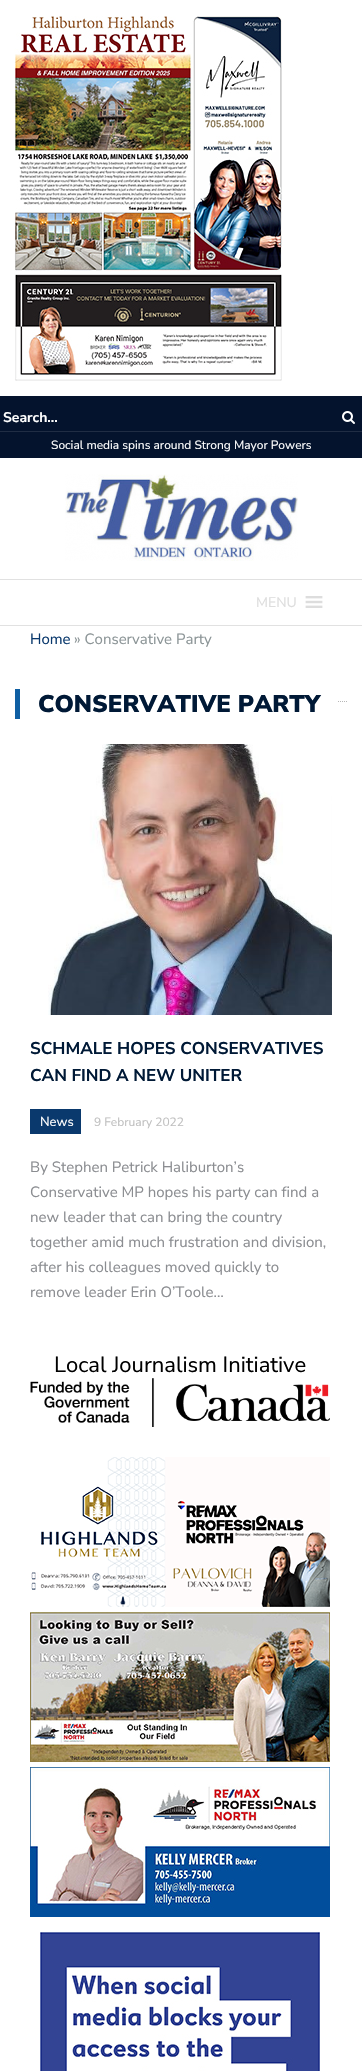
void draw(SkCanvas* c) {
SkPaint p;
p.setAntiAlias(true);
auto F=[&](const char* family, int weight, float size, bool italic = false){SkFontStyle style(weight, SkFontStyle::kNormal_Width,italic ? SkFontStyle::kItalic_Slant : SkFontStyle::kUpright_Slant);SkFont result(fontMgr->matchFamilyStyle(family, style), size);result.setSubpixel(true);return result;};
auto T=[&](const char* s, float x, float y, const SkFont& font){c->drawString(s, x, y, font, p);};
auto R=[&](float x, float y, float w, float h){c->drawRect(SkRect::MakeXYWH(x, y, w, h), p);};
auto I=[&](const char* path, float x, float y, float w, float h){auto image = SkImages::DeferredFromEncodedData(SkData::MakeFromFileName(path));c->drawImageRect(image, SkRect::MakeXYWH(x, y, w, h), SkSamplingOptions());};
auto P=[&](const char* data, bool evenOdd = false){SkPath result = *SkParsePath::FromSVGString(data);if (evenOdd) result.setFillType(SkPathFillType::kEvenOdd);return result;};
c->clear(0xffffffff);
I("1.png",14,16,268,365);
p.setColor(0xff04132d);
R(0,396,362,62);
p.setColor(0xff202d44);
R(0,431,362,1);
auto f1 = F("Nunito Sans",700,14);
p.setColor(0xffffffff);
T("Search...",3,422,f1);
I("2.png",342,411,13,13);
auto f2 = F("Nunito Sans",400,12);
T("Social media spins around Strong Mayor Powers",51,449,f2);
I("3.png",65,474,233,87);
p.setColor(0xffe1e1e1);
R(0,579,362,1);
R(0,625,362,1);
auto f3 = F("Nunito Sans",400,14);
p.setColor(0xffdddddd);
T("MENU",256,607,f3);
I("4.png",305,596,18,12);
auto f4 = F("Nunito Sans",400,15);
p.setColor(0xff0a396d);
T("Home",30,644,f4);
p.setColor(0xff8c9597);
T("» Conservative Party",74,644,f4);
p.setColor(0xff0f5fa3);
R(15,689,5,30);
p.setStroke(true);
p.setStrokeWidth(1);
p.setColor(0xffb7b7b7);
p.setPathEffect(SkDashPathEffect::Make({{1,1}}, 0));
c->drawPath(P("M20 701.5h327"),p);
p.setPathEffect(nullptr);
p.setStroke(false);
p.setColor(0xffffffff);
R(20,701,317,1);
auto f5 = F("Nunito Sans",900,24);
p.setColor(0xff001936);
T("CONSERVATIVE PARTY",38,712,f5);
I("5.png",48,744,284,271);
auto f6 = F("Nunito Sans",700,17);
T("SCHMALE HOPES CONSERVATIVES",30,1054,f6);
T("CAN FIND A NEW UNITER",30,1081,f6);
p.setColor(0xff0a396d);
R(30,1109,51,25);
auto f7 = F("Nunito Sans",400,13);
p.setColor(0xffffffff);
T("News",40,1126,f7);
p.setColor(0xffbfbfbf);
T("9 February 2022",94,1126,f2);
p.setColor(0xff8b8d91);
T("By Stephen Petrick Haliburton’s",30,1172,f4);
T("Conservative MP hopes his party can find a",30,1197,f4);
T("new leader that can bring the country",30,1222,f4);
T("together amid much frustration and division,",30,1247,f4);
T("after his colleagues moved quickly to",30,1272,f4);
T("remove leader Erin O’Toole…",30,1297,f4);
auto f8 = F("Nunito Sans",400,22);
p.setColor(0xff000000);
T("Local Journalism Initiative",54,1372,f8);
I("6.png",30,1378,300,49);
I("7.png",31,1457,299,150);
I("8.png",30,1612,300,150);
I("9.png",30,1767,300,150);
I("10.png",40,1932,280,139);
}
